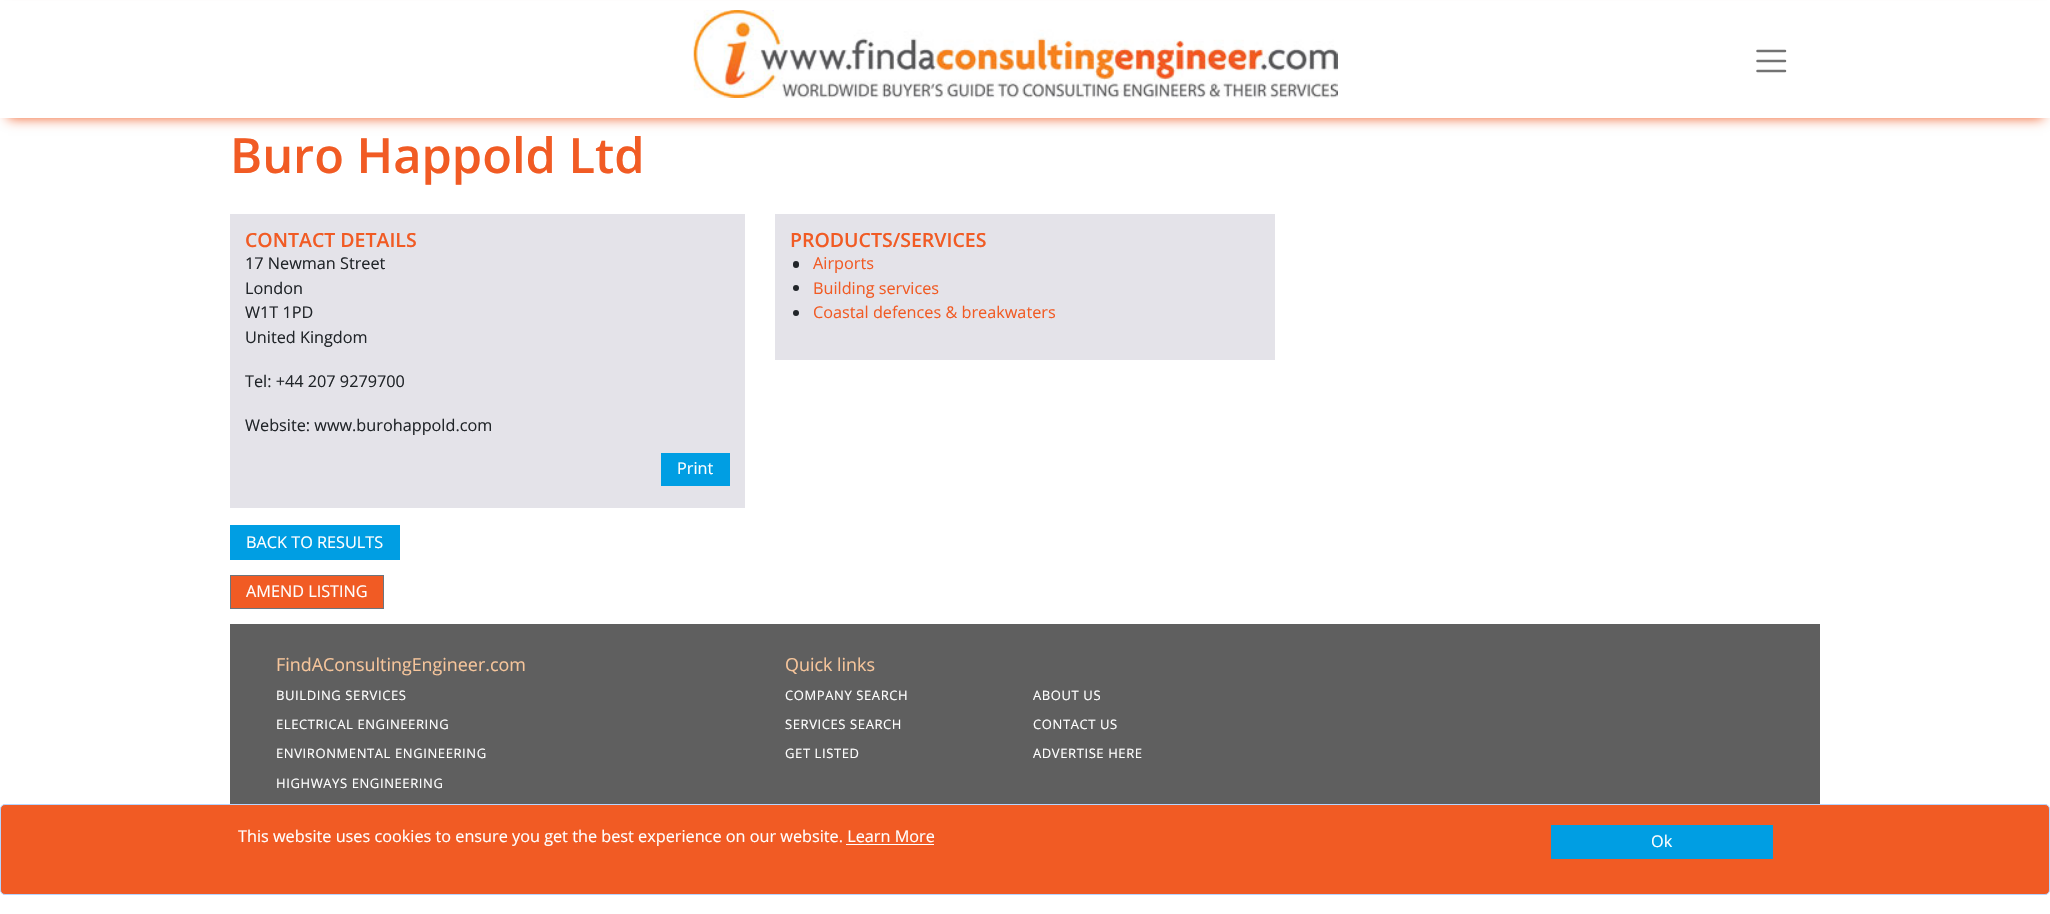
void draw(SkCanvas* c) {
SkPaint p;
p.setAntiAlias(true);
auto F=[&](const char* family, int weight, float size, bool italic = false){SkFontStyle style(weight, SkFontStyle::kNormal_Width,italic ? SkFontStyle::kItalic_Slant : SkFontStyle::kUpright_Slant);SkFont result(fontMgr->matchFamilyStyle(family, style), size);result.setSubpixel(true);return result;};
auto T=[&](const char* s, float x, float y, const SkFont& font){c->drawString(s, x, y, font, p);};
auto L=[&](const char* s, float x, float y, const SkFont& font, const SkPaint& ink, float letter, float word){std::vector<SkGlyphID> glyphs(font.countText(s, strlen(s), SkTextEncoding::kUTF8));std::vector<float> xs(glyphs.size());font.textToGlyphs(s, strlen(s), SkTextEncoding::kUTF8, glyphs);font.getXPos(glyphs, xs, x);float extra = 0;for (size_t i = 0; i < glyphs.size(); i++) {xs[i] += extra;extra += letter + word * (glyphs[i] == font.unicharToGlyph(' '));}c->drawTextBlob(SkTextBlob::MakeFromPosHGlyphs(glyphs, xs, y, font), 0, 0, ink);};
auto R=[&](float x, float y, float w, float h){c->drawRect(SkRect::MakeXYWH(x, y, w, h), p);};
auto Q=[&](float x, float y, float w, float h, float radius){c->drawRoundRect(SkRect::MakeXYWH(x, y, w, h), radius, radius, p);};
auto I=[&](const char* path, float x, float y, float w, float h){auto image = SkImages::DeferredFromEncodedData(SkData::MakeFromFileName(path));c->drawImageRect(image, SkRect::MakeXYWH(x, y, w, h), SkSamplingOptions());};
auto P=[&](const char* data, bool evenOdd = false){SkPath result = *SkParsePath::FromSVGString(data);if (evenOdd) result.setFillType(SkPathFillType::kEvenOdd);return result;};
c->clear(0xffffffff);
p.setColor(0xfff15b24);
p.setMaskFilter(SkMaskFilter::MakeBlur(kNormal_SkBlurStyle, 6));
c->drawRect(SkRect::MakeXYWH(8,15,2035,103),p);
p.setMaskFilter(nullptr);
p.setColor(0xffffffff);
R(0,1,2050,117);
I("1.png",693,10,645,88);
p.setStroke(true);
p.setStrokeWidth(2.5);
p.setStrokeCap(SkPaint::kRound_Cap);
p.setColor(0xff737373);
c->drawPath(P("M1757.5 51h27.5m-27.5 10h27.5m-27.5 10h27.5"),p);
auto f1 = F("Open Sans",600,48.75);
p.setStroke(false);
p.setColor(0xfff15b24);
T("Buro Happold Ltd",230,173,f1);
p.setColor(0xffe4e3e9);
R(230,214,515,294);
auto f2 = F("Open Sans",600,19.5);
p.setColor(0xfff15b24);
T("CONTACT DETAILS",245,247,f2);
auto f3 = F("Open Sans",400,16.25);
p.setColor(0xff212529);
T("17 Newman Street",245,269,f3);
T("London",245,294,f3);
T("W1T 1PD",245,318,f3);
T("United Kingdom",245,343,f3);
T("Tel: +44 207 9279700",245,387,f3);
T("Website: www.burohappold.com",245,431,f3);
p.setColor(0xff009ee3);
R(661,453,69,33);
p.setColor(0xffffffff);
T("Print",677,474,f3);
p.setColor(0xff009ee3);
R(230,525,170,35);
p.setColor(0xffffffff);
T("BACK TO RESULTS",246,548,f3);
p.setColor(0xfff15b24);
c->drawRect(SkRect::MakeXYWH(230.5,575.5,153,33),p);
p.setStroke(true);
p.setStrokeWidth(1);
p.setStrokeCap(SkPaint::kButt_Cap);
p.setColor(0xff6c757d);
c->drawRect(SkRect::MakeXYWH(230.5,575.5,153,33),p);
p.setStroke(false);
p.setColor(0xffffffff);
T("AMEND LISTING",246,597,f3);
p.setColor(0xffe4e3e9);
R(775,214,500,146);
p.setColor(0xfff15b24);
T("PRODUCTS/SERVICES",790,247,f2);
p.setColor(0xff212529);
Q(793,261,6,7,3);
p.setColor(0xfff15b24);
T("Airports",813,269,f3);
p.setColor(0xff212529);
c->drawCircle(796,288,3,p);
p.setColor(0xfff15b24);
T("Building services",813,294,f3);
p.setColor(0xff212529);
c->drawCircle(796,313,3,p);
p.setColor(0xfff15b24);
T("Coastal defences & breakwaters",813,318,f3);
p.setColor(0xff5f5f5f);
R(230,624,1590,180);
auto f4 = F("Open Sans",400,17.9);
p.setColor(0xfff6c59b);
T("FindAConsultingEngineer.com",276,671,f4);
auto f5 = F("Open Sans",400,13);
p.setColor(0xffffffff);
L("BUILDING SERVICES",276,700,f5,p,.6,0);
L("ELECTRICAL ENGINEERING",276,729,f5,p,.6,0);
L("ENVIRONMENTAL ENGINEERING",276,758,f5,p,.6,0);
L("HIGHWAYS ENGINEERING",276,788,f5,p,.6,0);
p.setColor(0xfff6c59b);
T("Quick links",785,671,f4);
p.setColor(0xffffffff);
L("COMPANY SEARCH",785,700,f5,p,.6,0);
L("SERVICES SEARCH",785,729,f5,p,.6,0);
L("GET LISTED",785,758,f5,p,.6,0);
L("ABOUT US",1033,700,f5,p,.6,0);
L("CONTACT US",1033,729,f5,p,.6,0);
L("ADVERTISE HERE",1033,758,f5,p,.6,0);
p.setColor(0xfff15b24);
c->drawRoundRect(SkRect::MakeXYWH(.5,804.5,2049,90),4.5,4.5,p);
p.setStroke(true);
p.setColor(0xffb6d4fe);
c->drawRoundRect(SkRect::MakeXYWH(.5,804.5,2049,90),4.5,4.5,p);
p.setStroke(false);
p.setColor(0xffffffff);
T("This website uses cookies to ensure you get the best experience on our website. Learn More",238,842,f3);
R(846,844,88,1);
p.setColor(0xff009ee3);
R(1551,825,222,34);
p.setColor(0xffffffff);
T("Ok",1651,847,f3);
}
